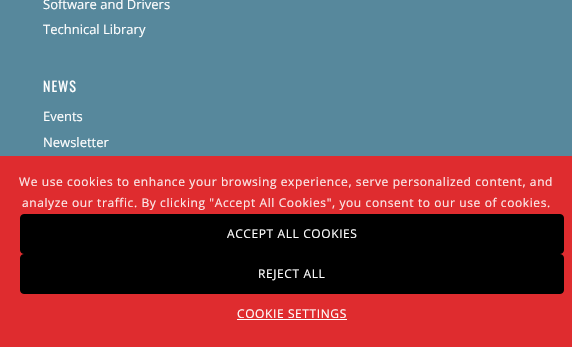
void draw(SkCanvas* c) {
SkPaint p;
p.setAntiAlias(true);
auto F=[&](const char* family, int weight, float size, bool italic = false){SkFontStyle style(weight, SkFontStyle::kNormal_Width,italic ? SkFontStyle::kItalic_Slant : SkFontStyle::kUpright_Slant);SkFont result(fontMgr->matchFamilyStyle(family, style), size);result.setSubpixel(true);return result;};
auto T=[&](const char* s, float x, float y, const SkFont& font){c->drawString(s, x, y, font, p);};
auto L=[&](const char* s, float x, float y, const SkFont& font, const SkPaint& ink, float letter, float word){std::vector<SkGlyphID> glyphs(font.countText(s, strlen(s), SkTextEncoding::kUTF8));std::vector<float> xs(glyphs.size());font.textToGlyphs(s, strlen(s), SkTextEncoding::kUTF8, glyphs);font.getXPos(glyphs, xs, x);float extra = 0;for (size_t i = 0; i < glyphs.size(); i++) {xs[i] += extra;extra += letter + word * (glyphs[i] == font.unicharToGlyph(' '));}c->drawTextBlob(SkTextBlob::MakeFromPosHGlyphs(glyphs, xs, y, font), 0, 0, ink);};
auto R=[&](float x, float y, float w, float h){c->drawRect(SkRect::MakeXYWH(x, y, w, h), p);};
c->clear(0xff57889c);
auto f1 = F("Open Sans",400,13);
p.setColor(0xffffffff);
T("Software and Drivers",43,9,f1);
T("Technical Library",43,34,f1);
auto f2 = F("Oswald",400,14);
L("NEWS",43,92,f2,p,1,0);
T("Events",43,121,f1);
T("Newsletter",43,147,f1);
p.setColor(0xffdf2c2f);
R(0,156,572,191);
auto f3 = F("Open Sans",400,12);
p.setColor(0xfffceaea);
L("We use cookies to enhance your browsing experience, serve personalized content, and",19,186,f3,p,.6,0);
L("analyze our traffic. By clicking \"Accept All Cookies\", you consent to our use of cookies.",22,207,f3,p,.6,0);
p.setColor(0xff000000);
c->drawRoundRect(SkRect::MakeXYWH(20.5,214.5,543,39),3.5,3.5,p);
p.setStroke(true);
p.setStrokeWidth(1);
c->drawRoundRect(SkRect::MakeXYWH(20.5,214.5,543,39),3.5,3.5,p);
p.setStroke(false);
p.setColor(0xffffffff);
L("ACCEPT ALL COOKIES",227,238,f3,p,.6,0);
p.setColor(0xff000000);
c->drawRoundRect(SkRect::MakeXYWH(20.5,254.5,543,39),3.5,3.5,p);
p.setStroke(true);
c->drawRoundRect(SkRect::MakeXYWH(20.5,254.5,543,39),3.5,3.5,p);
p.setStroke(false);
p.setColor(0xffffffff);
L("REJECT ALL",258,278,f3,p,.6,0);
L("COOKIE SETTINGS",237,318,f3,p,.6,0);
R(237,319,110,1);
}
